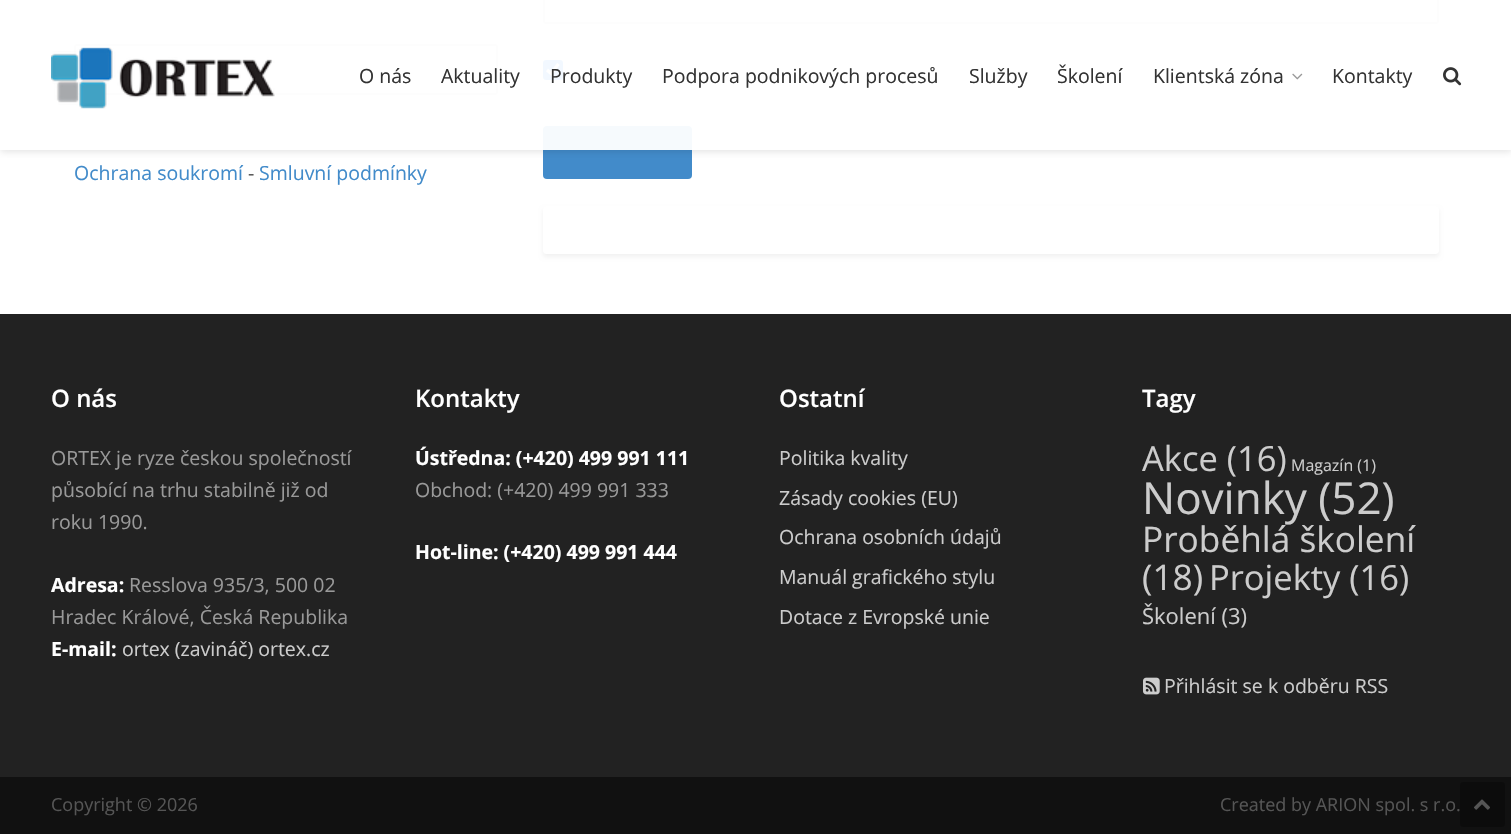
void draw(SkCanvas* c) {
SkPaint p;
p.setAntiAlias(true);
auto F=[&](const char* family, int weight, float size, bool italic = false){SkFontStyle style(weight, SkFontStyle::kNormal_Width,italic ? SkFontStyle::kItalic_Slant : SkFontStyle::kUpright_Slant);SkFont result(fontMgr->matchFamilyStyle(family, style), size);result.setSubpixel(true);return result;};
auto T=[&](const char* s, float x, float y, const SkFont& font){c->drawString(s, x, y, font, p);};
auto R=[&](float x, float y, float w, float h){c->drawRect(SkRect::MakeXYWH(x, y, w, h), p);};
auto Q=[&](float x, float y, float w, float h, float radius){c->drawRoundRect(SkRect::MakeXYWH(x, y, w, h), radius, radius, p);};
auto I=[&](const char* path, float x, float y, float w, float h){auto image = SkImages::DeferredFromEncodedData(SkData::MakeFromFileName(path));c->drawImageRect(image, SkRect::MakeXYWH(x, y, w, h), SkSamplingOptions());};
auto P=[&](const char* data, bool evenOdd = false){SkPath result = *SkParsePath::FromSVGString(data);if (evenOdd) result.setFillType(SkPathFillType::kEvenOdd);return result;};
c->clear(0xffffffff);
p.setStroke(true);
p.setStrokeWidth(2);
p.setColor(0xffcccccc);
c->drawRoundRect(SkRect::MakeXYWH(75,45,422,49),2,2,p);
c->drawRoundRect(SkRect::MakeXYWH(544,-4,894,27),2,2,p);
p.setStroke(false);
p.setColor(0xff0075ff);
Q(543,60,20,20,3);
p.setStroke(true);
p.setStrokeWidth(3.1);
p.setColor(0xffffffff);
c->drawPath(P("M547 70l4 3.5l7.5-9.5"),p);
p.setStroke(false);
p.setColor(0xff428bca);
Q(543,126,149,53,4);
p.setColor(0xf2ffffff);
R(74,0,1365,150);
I("1.png",51,47,224,62);
auto f1 = F("Open Sans",400,19.5);
p.setColor(0xff333333);
T("O nás",359,83,f1);
T("Aktuality",441,83,f1);
T("Produkty",550,83,f1);
T("Podpora podnikových procesů",662,83,f1);
T("Služby",969,83,f1);
T("Školení",1057,83,f1);
T("Klientská zóna",1153,83,f1);
I("2.png",1292,73,11,7);
T("Kontakty",1332,83,f1);
I("3.png",1443,67,19,19);
c->save();
c->clipRect(SkRect::MakeXYWH(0,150,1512,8));
p.setColor(0x1a000000);
p.setMaskFilter(SkMaskFilter::MakeBlur(kNormal_SkBlurStyle, 3));
c->drawRoundRect(SkRect::MakeXYWH(0,144,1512,8),4,4,p);
p.setMaskFilter(nullptr);
c->restore();
p.setColor(0xff428bca);
T("Ochrana soukromí",74,180,f1);
p.setColor(0xff555555);
T("-",248,180,f1);
p.setColor(0xff428bca);
T("Smluvní podmínky",259,180,f1);
c->save();
c->clipPath(P("M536 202h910v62h-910zm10 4h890c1.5 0 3 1.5 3 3v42c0 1.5-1.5 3-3 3h-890c-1.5 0-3-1.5-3-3v-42c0-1.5 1.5-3 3-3z",true),true);
p.setColor(0x0d000000);
p.setMaskFilter(SkMaskFilter::MakeBlur(kNormal_SkBlurStyle, 2));
c->drawRoundRect(SkRect::MakeXYWH(543,209,896,48),3,3,p);
p.setMaskFilter(nullptr);
c->restore();
p.setColor(0xff222222);
R(0,314,1511,463);
auto f2 = F("Open Sans",600,24);
p.setColor(0xffffffff);
T("O nás",51,407,f2);
p.setColor(0xff999999);
T("ORTEX je ryze českou společností",51,465,f1);
T("působící na trhu stabilně již od",51,497,f1);
T("roku 1990.",51,529,f1);
auto f3 = F("Open Sans",700,19.5);
p.setColor(0xffffffff);
T("Adresa:",51,592,f3);
p.setColor(0xff999999);
T("Resslova 935/3, 500 02",129,592,f1);
T("Hradec Králové, Česká Republika",51,624,f1);
p.setColor(0xffffffff);
T("E-mail:",51,656,f3);
p.setColor(0xffcccccc);
T("ortex (zavináč) ortex.cz",122,656,f1);
p.setColor(0xffffffff);
T("Kontakty",415,407,f2);
T("Ústředna: (+420) 499 991 111",415,465,f3);
p.setColor(0xff999999);
T("Obchod: (+420) 499 991 333",415,497,f1);
p.setColor(0xffffffff);
T("Hot-line: (+420) 499 991 444",415,559,f3);
T("Ostatní",779,407,f2);
p.setColor(0xffcccccc);
T("Politika kvality",779,465,f1);
T("Zásady cookies (EU)",779,505,f1);
T("Ochrana osobních údajů",779,544,f1);
T("Manuál grafického stylu",779,584,f1);
T("Dotace z Evropské unie",779,624,f1);
p.setColor(0xffffffff);
T("Tagy",1142,407,f2);
auto f4 = F("Open Sans",400,34.5);
p.setColor(0xffcccccc);
T("Akce (16)",1142,471,f4);
auto f5 = F("Open Sans",400,16);
T("Magazín (1)",1291,471,f5);
auto f6 = F("Open Sans",400,44);
T("Novinky (52)",1142,514,f6);
auto f7 = F("Open Sans",400,35.25);
T("Proběhlá školení",1142,552,f7);
T("(18)",1142,590,f7);
T("Projekty (16)",1209,590,f4);
auto f8 = F("Open Sans",400,22);
T("Školení (3)",1142,624,f8);
I("4.png",1143,677,17,18);
T("Přihlásit se k odběru RSS",1164,693,f1);
p.setColor(0xff111111);
R(0,777,1511,57);
auto f9 = F("Open Sans",400,18);
p.setColor(0xff555555);
T("Copyright © 2026",51,811,f9);
T("Created by ARION spol. s r.o.",1220,811,f9);
p.setColor(0xff0c0c0c);
Q(1460,782,45,45,3);
I("5.png",1474,799,16,11);
}
